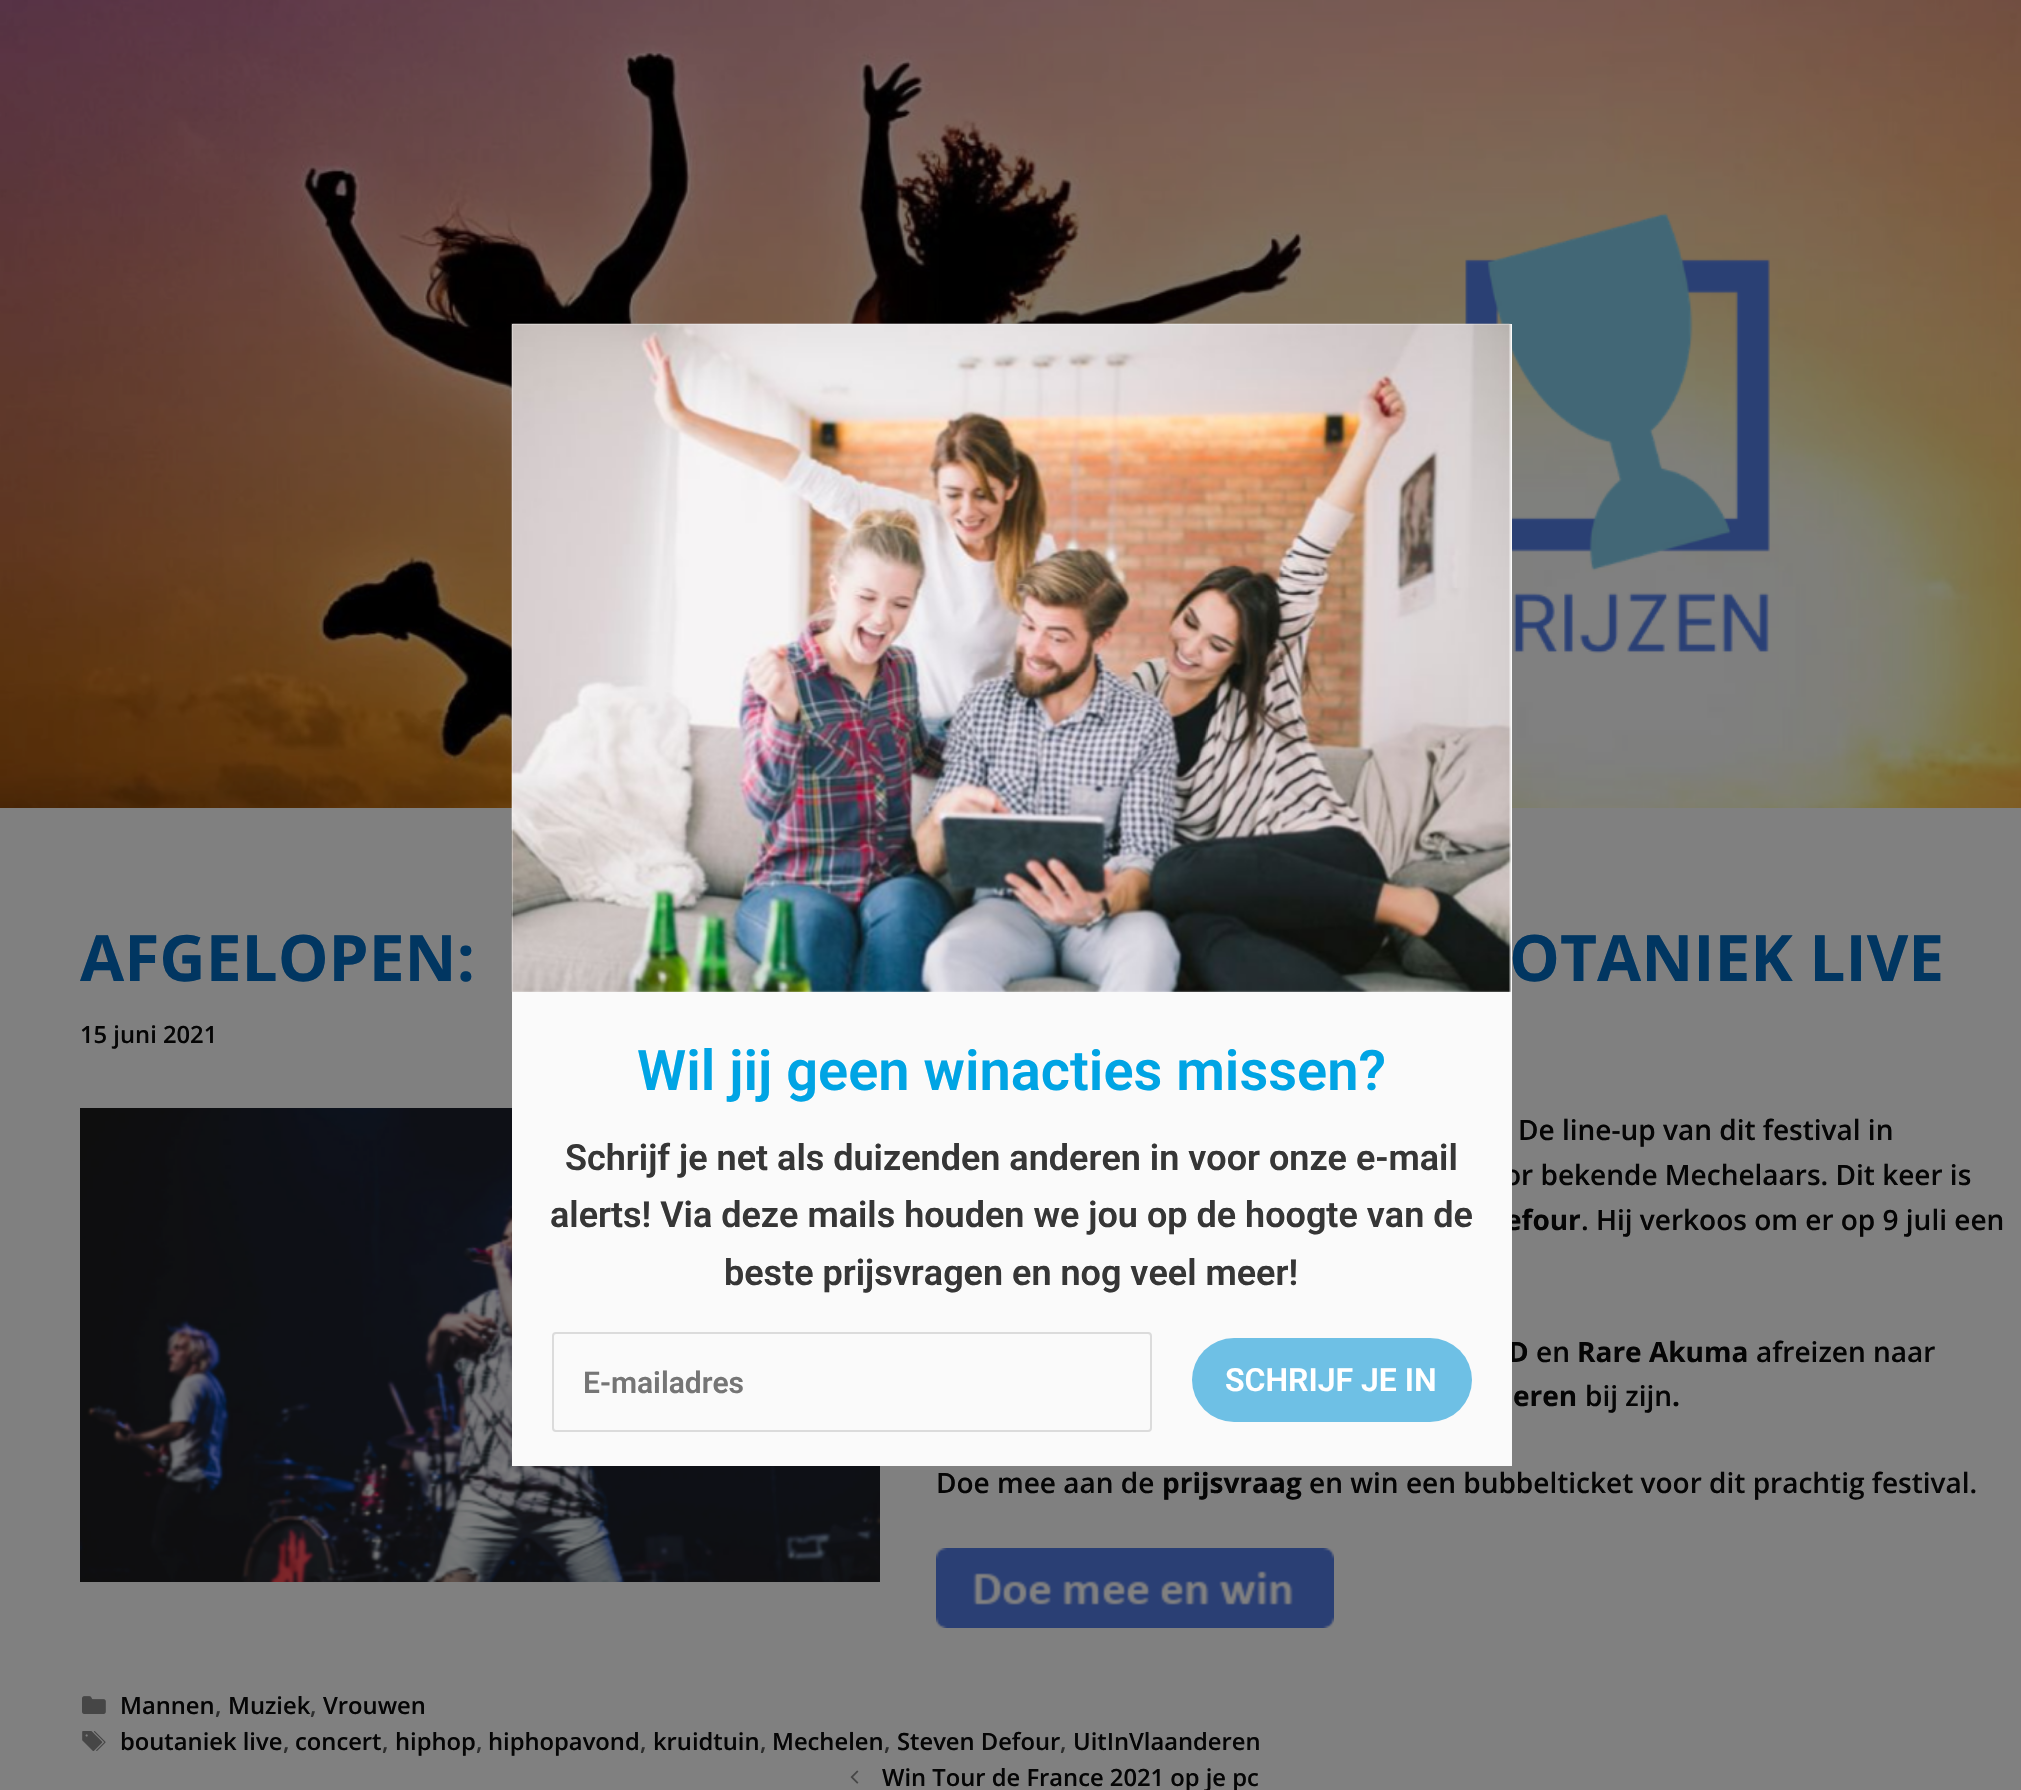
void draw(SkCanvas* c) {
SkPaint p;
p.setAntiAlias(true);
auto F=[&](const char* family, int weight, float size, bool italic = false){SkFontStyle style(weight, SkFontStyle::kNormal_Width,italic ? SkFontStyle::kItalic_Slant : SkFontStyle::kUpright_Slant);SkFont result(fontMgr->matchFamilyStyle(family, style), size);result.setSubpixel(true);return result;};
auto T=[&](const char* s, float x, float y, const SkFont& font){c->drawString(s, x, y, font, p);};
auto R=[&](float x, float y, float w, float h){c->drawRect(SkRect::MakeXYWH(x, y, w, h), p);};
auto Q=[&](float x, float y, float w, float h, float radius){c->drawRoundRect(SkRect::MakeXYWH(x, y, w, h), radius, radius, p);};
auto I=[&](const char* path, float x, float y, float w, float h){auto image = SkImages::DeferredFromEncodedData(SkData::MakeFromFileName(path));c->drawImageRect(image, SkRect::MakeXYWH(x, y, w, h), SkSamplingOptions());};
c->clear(0xff808080);
I("1.png",0,0,2021,808);
auto f1 = F("Open Sans",700,64);
p.setColor(0xff013661);
T("AFGELOPEN:",80,981,f1);
T("OTANIEK LIVE",1509,981,f1);
auto f2 = F("Open Sans",600,23.75);
p.setColor(0xff050505);
T("15 juni 2021",80,1043,f2);
I("2.png",80,1108,800,474);
auto f3 = F("Open Sans",600,28);
T("De line-up van dit festival in",1518,1140,f3);
T("or bekende Mechelaars. Dit keer is",1504,1185,f3);
auto f4 = F("Open Sans",700,28);
T("efour",1505,1230,f4);
T(". Hij verkoos om er op 9 juli een",1581,1230,f3);
T("D",1508,1362,f4);
T("en",1536,1362,f3);
T("Rare Akuma",1577,1362,f4);
T("afreizen naar",1756,1362,f3);
T("eren",1513,1406,f4);
T("bij zijn",1585,1406,f3);
T(".",1672,1406,f4);
T("Doe mee aan de",936,1493,f3);
T("prijsvraag",1162,1493,f4);
T("en win een bubbelticket voor dit prachtig festival.",1309,1493,f3);
I("3.png",936,1548,398,80);
I("4.png",82,1696,24,18);
T("Mannen",120,1714,f2);
p.setColor(0xff2d2d2d);
T(",",215,1714,f2);
p.setColor(0xff050505);
T("Muziek",228,1714,f2);
p.setColor(0xff2d2d2d);
T(",",310,1714,f2);
p.setColor(0xff050505);
T("Vrouwen",323,1714,f2);
I("5.png",82,1731,24,20);
T("boutaniek live",120,1750,f2);
p.setColor(0xff2d2d2d);
T(",",283,1750,f2);
p.setColor(0xff050505);
T("concert",295,1750,f2);
p.setColor(0xff2d2d2d);
T(",",382,1750,f2);
p.setColor(0xff050505);
T("hiphop",395,1750,f2);
p.setColor(0xff2d2d2d);
T(",",476,1750,f2);
p.setColor(0xff050505);
T("hiphopavond",488,1750,f2);
p.setColor(0xff2d2d2d);
T(",",640,1750,f2);
p.setColor(0xff050505);
T("kruidtuin",653,1750,f2);
p.setColor(0xff2d2d2d);
T(",",760,1750,f2);
p.setColor(0xff050505);
T("Mechelen",772,1750,f2);
p.setColor(0xff2d2d2d);
T(",",884,1750,f2);
p.setColor(0xff050505);
T("Steven Defour",897,1750,f2);
p.setColor(0xff2d2d2d);
T(",",1060,1750,f2);
p.setColor(0xff050505);
T("UitInVlaanderen",1073,1750,f2);
I("6.png",850,1770,9,14);
T("Win Tour de France 2021 op je pc",882,1786,f2);
p.setColor(0xfffafafa);
R(512,324,1000,1142);
I("7.png",511,323,1000,669);
auto f5 = F("Roboto",600,56);
p.setColor(0xff00a4e4);
T("Wil jij geen winacties missen?",637,1090,f5);
auto f6 = F("Roboto",600,36);
p.setColor(0xff363636);
T("Schrijf je net als duizenden anderen in voor onze e-mail",565,1170,f6);
T("alerts! Via deze mails houden we jou op de hoogte van de",550,1227,f6);
T("beste prijsvragen en nog veel meer!",724,1285,f6);
p.setStroke(true);
p.setStrokeWidth(2);
p.setColor(0xffdbdbdb);
c->drawRoundRect(SkRect::MakeXYWH(553,1333,598,98),3,3,p);
auto f7 = F("Roboto",600,30);
p.setStroke(false);
p.setColor(0xff757575);
T("E-mailadres",583,1393,f7);
p.setColor(0xff6ec0e5);
Q(1192,1338,280,84,42);
auto f8 = F("Roboto",600,32);
p.setColor(0xffffffff);
T("SCHRIJF JE IN",1225,1391,f8);
}
